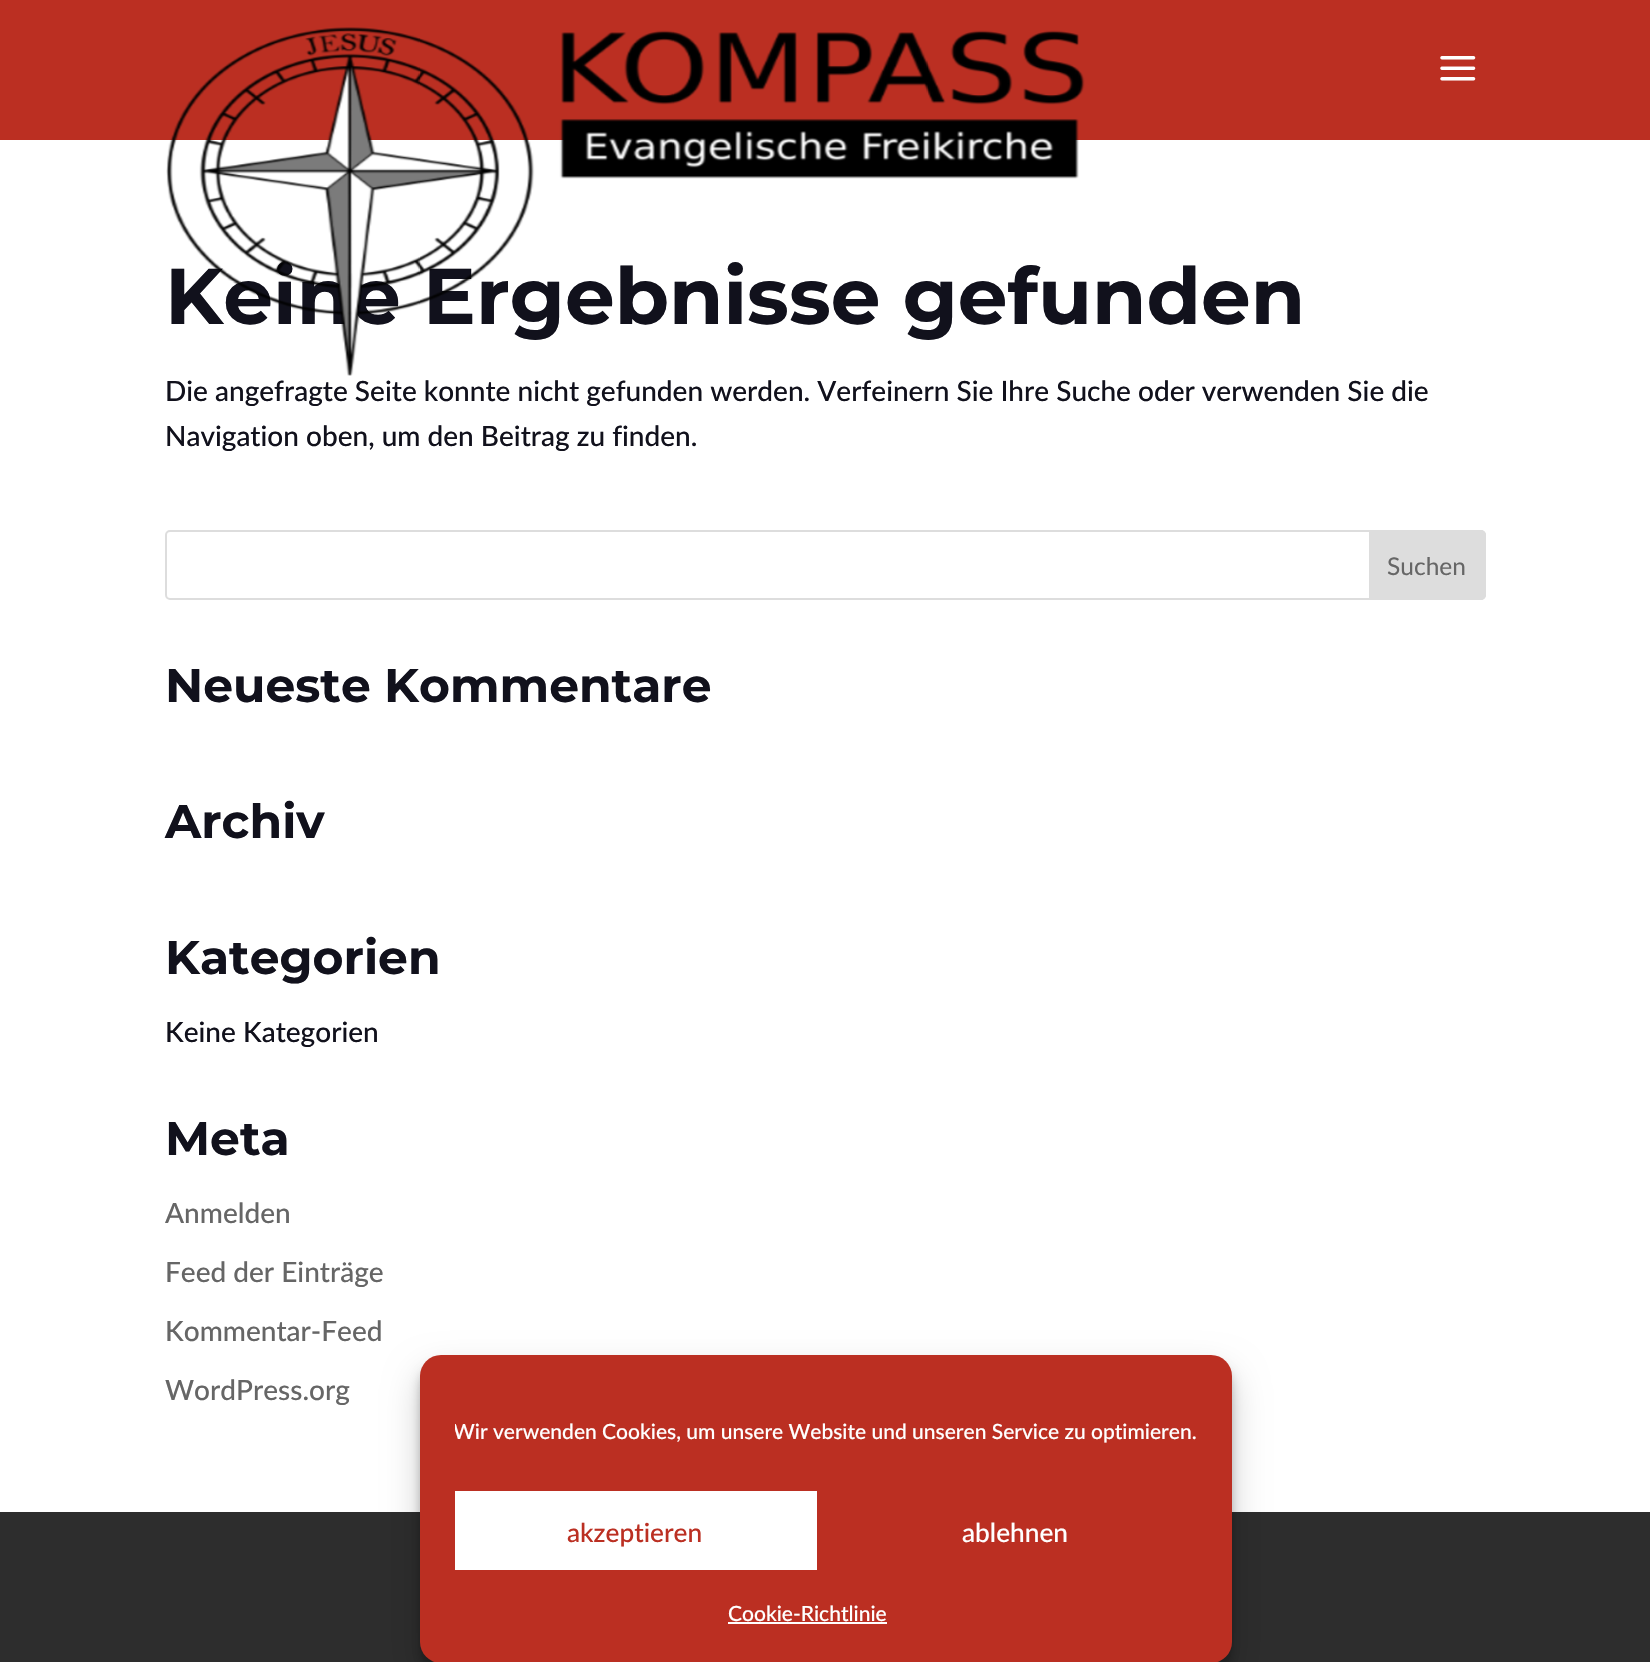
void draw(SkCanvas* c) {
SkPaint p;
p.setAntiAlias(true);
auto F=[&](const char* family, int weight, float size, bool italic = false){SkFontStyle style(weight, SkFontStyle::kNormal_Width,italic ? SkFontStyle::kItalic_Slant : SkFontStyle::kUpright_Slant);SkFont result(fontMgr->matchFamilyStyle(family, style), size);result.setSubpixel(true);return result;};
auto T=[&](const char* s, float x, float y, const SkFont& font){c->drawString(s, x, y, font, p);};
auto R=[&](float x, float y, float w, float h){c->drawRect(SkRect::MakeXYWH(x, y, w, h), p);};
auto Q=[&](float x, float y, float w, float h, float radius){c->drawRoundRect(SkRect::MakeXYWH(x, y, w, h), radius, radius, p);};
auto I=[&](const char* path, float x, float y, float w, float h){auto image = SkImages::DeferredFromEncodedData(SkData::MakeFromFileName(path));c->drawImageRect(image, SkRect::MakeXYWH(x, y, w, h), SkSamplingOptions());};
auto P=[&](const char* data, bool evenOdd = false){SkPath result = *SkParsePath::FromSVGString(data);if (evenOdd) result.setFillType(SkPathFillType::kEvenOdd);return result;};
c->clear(0xffffffff);
p.setColor(0xffbb2f22);
R(0,0,1650,140);
auto f1 = F("Montserrat",700,78.75);
p.setColor(0xff11111c);
T("Keine Ergebnisse gefunden",165,324,f1);
I("1.png",166,27,919,349);
I("2.png",1440,56,36,25);
auto f2 = F("Lato",500,28);
T("Die angefragte Seite konnte nicht gefunden werden. Verfeinern Sie Ihre Suche oder verwenden Sie die",165,401,f2);
T("Navigation oben, um den Beitrag zu finden.",165,446,f2);
p.setStroke(true);
p.setStrokeWidth(2);
p.setColor(0xffdddddd);
c->drawRoundRect(SkRect::MakeXYWH(166,531,1319,68),4,4,p);
p.setStroke(false);
c->drawPath(P("M1370 531h111c2 0 4 2 4 4v60c0 2-2 4-4 4h-111z"),p);
p.setStroke(true);
c->drawPath(P("M1370 531h111c2 0 4 2 4 4v60c0 2-2 4-4 4h-111z"),p);
auto f3 = F("Lato",400,24.5);
p.setStroke(false);
p.setColor(0xff666666);
T("Suchen",1387,575,f3);
auto f4 = F("Montserrat",700,47.25);
p.setColor(0xff11111c);
T("Neueste Kommentare",165,702,f4);
T("Archiv",165,838,f4);
T("Kategorien",165,974,f4);
T("Keine Kategorien",165,1042,f2);
T("Meta",165,1155,f4);
p.setColor(0xff666666);
T("Anmelden",165,1223,f2);
T("Feed der Einträge",165,1282,f2);
T("Kommentar-Feed",165,1341,f2);
T("WordPress.org",165,1400,f2);
p.setColor(0xff2d2d2d);
R(0,1512,1650,150);
p.setColor(0x3b000000);
p.setMaskFilter(SkMaskFilter::MakeBlur(kNormal_SkBlurStyle, 5));
c->drawRoundRect(SkRect::MakeXYWH(420,1365,812,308),21,21,p);
p.setMaskFilter(nullptr);
p.setColor(0x30000000);
p.setMaskFilter(SkMaskFilter::MakeBlur(kNormal_SkBlurStyle, 17.5));
c->drawRoundRect(SkRect::MakeXYWH(420,1372,812,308),21,21,p);
p.setMaskFilter(nullptr);
p.setColor(0xffbb2f22);
Q(420,1355,812,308,21);
c->save();
c->clipRect(SkRect::MakeXYWH(455,1416,742,40));
auto f5 = F("Lato",500,21);
p.setColor(0xffffffff);
T("Wir verwenden Cookies, um unsere Website und unseren Service zu optimieren.",453,1439,f5);
c->restore();
R(455,1491,362,79);
auto f6 = F("Lato",500,26.25);
p.setColor(0xffbb2f22);
T("akzeptieren",567,1542,f6);
p.setColor(0xffffffff);
T("ablehnen",962,1542,f6);
T("Cookie-Richtlinie",728,1621,f5);
R(728,1622,159,2);
}
